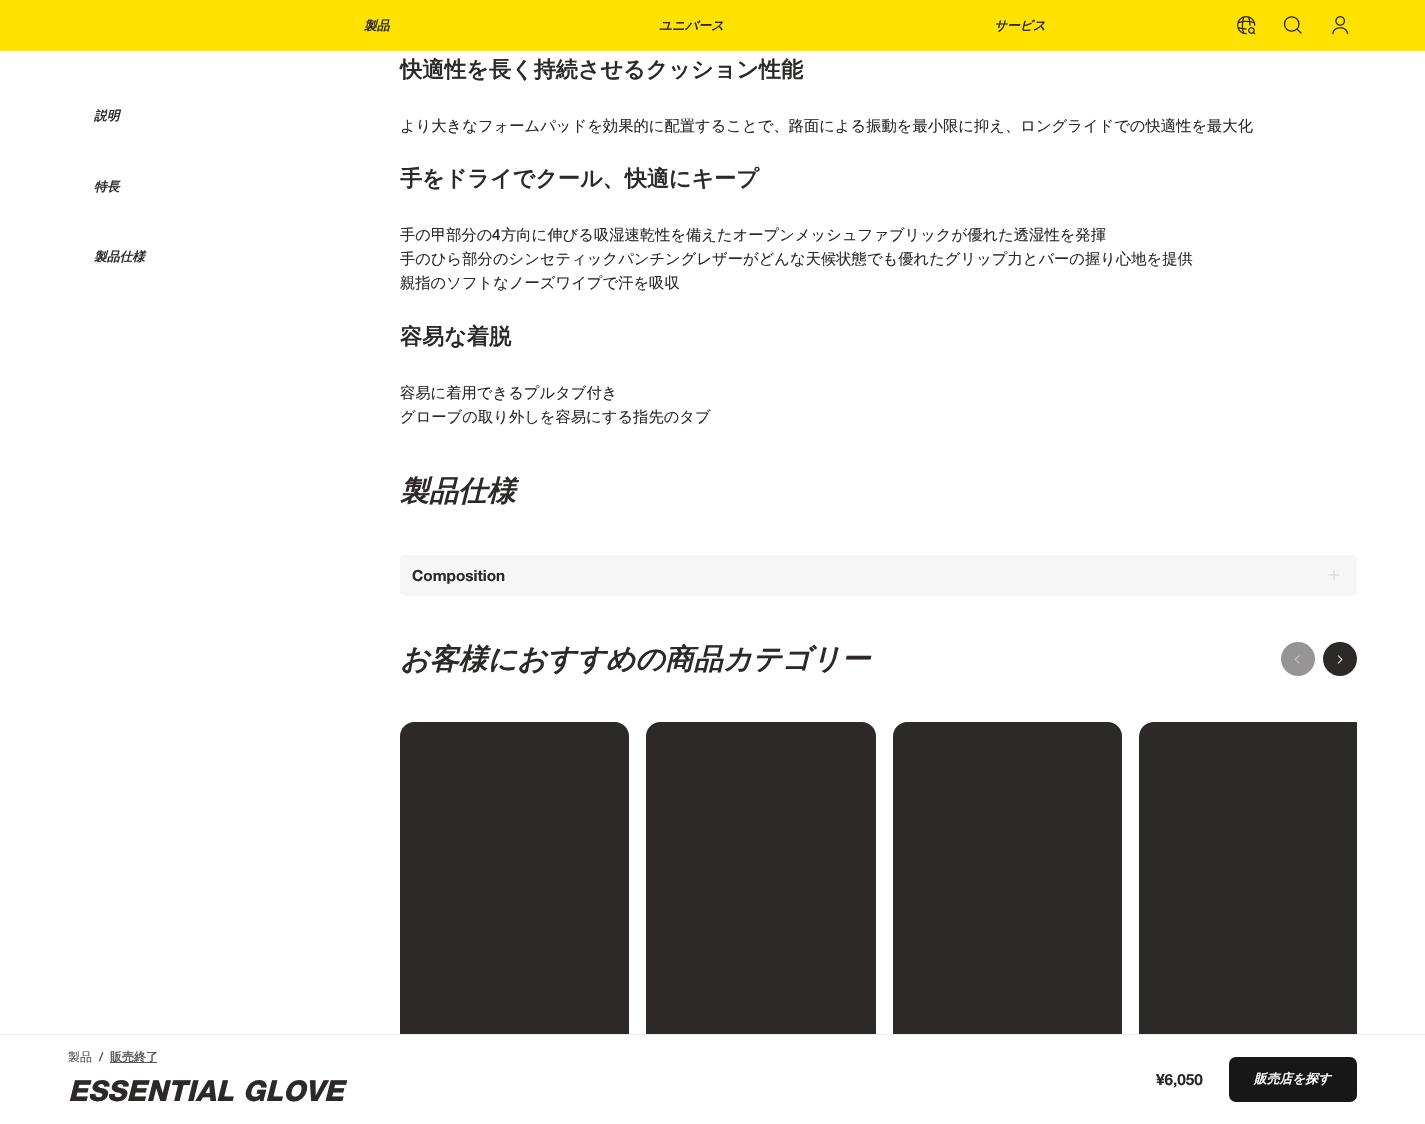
void draw(SkCanvas* c) {
SkPaint p;
p.setAntiAlias(true);
auto F=[&](const char* family, int weight, float size, bool italic = false){SkFontStyle style(weight, SkFontStyle::kNormal_Width,italic ? SkFontStyle::kItalic_Slant : SkFontStyle::kUpright_Slant);SkFont result(fontMgr->matchFamilyStyle(family, style), size);result.setSubpixel(true);return result;};
auto T=[&](const char* s, float x, float y, const SkFont& font){c->drawString(s, x, y, font, p);};
auto R=[&](float x, float y, float w, float h){c->drawRect(SkRect::MakeXYWH(x, y, w, h), p);};
auto Q=[&](float x, float y, float w, float h, float radius){c->drawRoundRect(SkRect::MakeXYWH(x, y, w, h), radius, radius, p);};
auto I=[&](const char* path, float x, float y, float w, float h){auto image = SkImages::DeferredFromEncodedData(SkData::MakeFromFileName(path));c->drawImageRect(image, SkRect::MakeXYWH(x, y, w, h), SkSamplingOptions());};
auto P=[&](const char* data, bool evenOdd = false){SkPath result = *SkParsePath::FromSVGString(data);if (evenOdd) result.setFillType(SkPathFillType::kEvenOdd);return result;};
c->clear(0xffffffff);
p.setColor(0xffffe200);
R(0,0,1425,51);
auto f1 = F("WenQuanYi Zen Hei",700,12.75,true);
p.setColor(0xff2d2929);
T("製品",364,30,f1);
T("ユニバース",659,30,f1);
T("サービス",994,30,f1);
I("1.png",1237,16,19,19);
p.setStroke(true);
p.setStrokeWidth(1.3);
p.setStrokeCap(SkPaint::kRound_Cap);
c->drawPath(P("M1301 33l-4-4m2-5c0 9.5-14.5 9.5-14.5 0c0-9.5 14.5-9.5 14.5 0z"),p);
I("2.png",1332,16,17,19);
p.setStroke(false);
T("説明",94,120,f1);
T("特長",94,191,f1);
T("製品仕様",94,261,f1);
auto f2 = F("WenQuanYi Zen Hei",700,22.1);
T("快適性を長く持続させるクッション性能",400,77,f2);
auto f3 = F("WenQuanYi Zen Hei",500,15.3);
T("より大きなフォームパッドを効果的に配置することで、路面による振動を最小限に抑え、ロングライドでの快適性を最大化",400,131,f3);
T("手をドライでクール、快適にキープ",400,186,f2);
T("手の甲部分の",400,240,f3);
auto f4 = F("Helvetica Neue",500,15.3);
T("4",492,240,f4);
T("方向に伸びる吸湿速乾性を備えたオープンメッシュファブリックが優れた透湿性を発揮",501,240,f3);
T("手のひら部分のシンセティックパンチングレザーがどんな天候状態でも優れたグリップ力とバーの握り心地を提供",400,264,f3);
T("親指のソフトなノーズワイプで汗を吸収",400,288,f3);
T("容易な着脱",400,344,f2);
T("容易に着用できるプルタブ付き",400,398,f3);
T("グローブの取り外しを容易にする指先のタブ",400,422,f3);
auto f5 = F("WenQuanYi Zen Hei",700,28.9,true);
T("製品仕様",400,501,f5);
p.setColor(0xfff6f6f6);
Q(400,555,957,41,5);
auto f6 = F("Helvetica Neue",700,15.3);
p.setColor(0xff2d2929);
T("Composition",412,581,f6);
I("3.png",1328,569,12,12);
T("お客様におすすめの商品カテゴリー",400,669,f5);
p.setColor(0xff969494);
c->drawCircle(1298,659,17,p);
I("4.png",1294,655,6,9);
p.setColor(0xff2d2929);
c->drawCircle(1340,659,17,p);
I("5.png",1337,655,6,9);
c->drawPath(P("M414 722h201c7.5 0 14 6.5 14 14v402h-229v-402c0-7.5 6.5-14 14-14z"),p);
c->drawPath(P("M660 722h202c7.5 0 14 6.5 14 14v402h-230v-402c0-7.5 6.5-14 14-14z"),p);
c->drawPath(P("M907 722h201c7.5 0 14 6.5 14 14v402h-229v-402c0-7.5 6.5-14 14-14z"),p);
c->save();
c->clipRect(SkRect::MakeXYWH(400,722,957,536));
p.setColor(0xfff6f6f6);
Q(1139,722,230,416,14);
c->restore();
c->save();
c->clipPath(P("M1153 722h202c7.5 0 14 6.5 14 14v508c0 7.5-6.5 14-14 14h-202c-7.5 0-14-6.5-14-14v-508c0-7.5 6.5-14 14-14z"),true);
p.setColor(0xff2d2929);
c->drawPath(P("M1153 722h204v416h-218v-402c0-7.5 6.5-14 14-14z"),p);
c->restore();
p.setColor(0xffffffff);
R(400,1035,957,89);
p.setColor(0xffeeeeee);
R(0,1034,1425,1);
auto f7 = F("WenQuanYi Zen Hei",500,12);
p.setColor(0xff575454);
T("製品",68,1061,f7);
auto f8 = F("Helvetica Neue",500,12);
T("/",99,1061,f8);
R(110,1062,47,1);
auto f9 = F("WenQuanYi Zen Hei",700,12);
T("販売終了",110,1061,f9);
auto f10 = F("Helvetica Neue",700,28.9,true);
p.setColor(0xff2d2929);
T("ESSENTIAL GLOVE",68,1101,f10);
T("¥6,050",1156,1085,f6);
p.setColor(0xff181717);
Q(1229,1057,128,45,7);
p.setColor(0xffffffff);
T("販売店を探す",1254,1083,f1);
}
